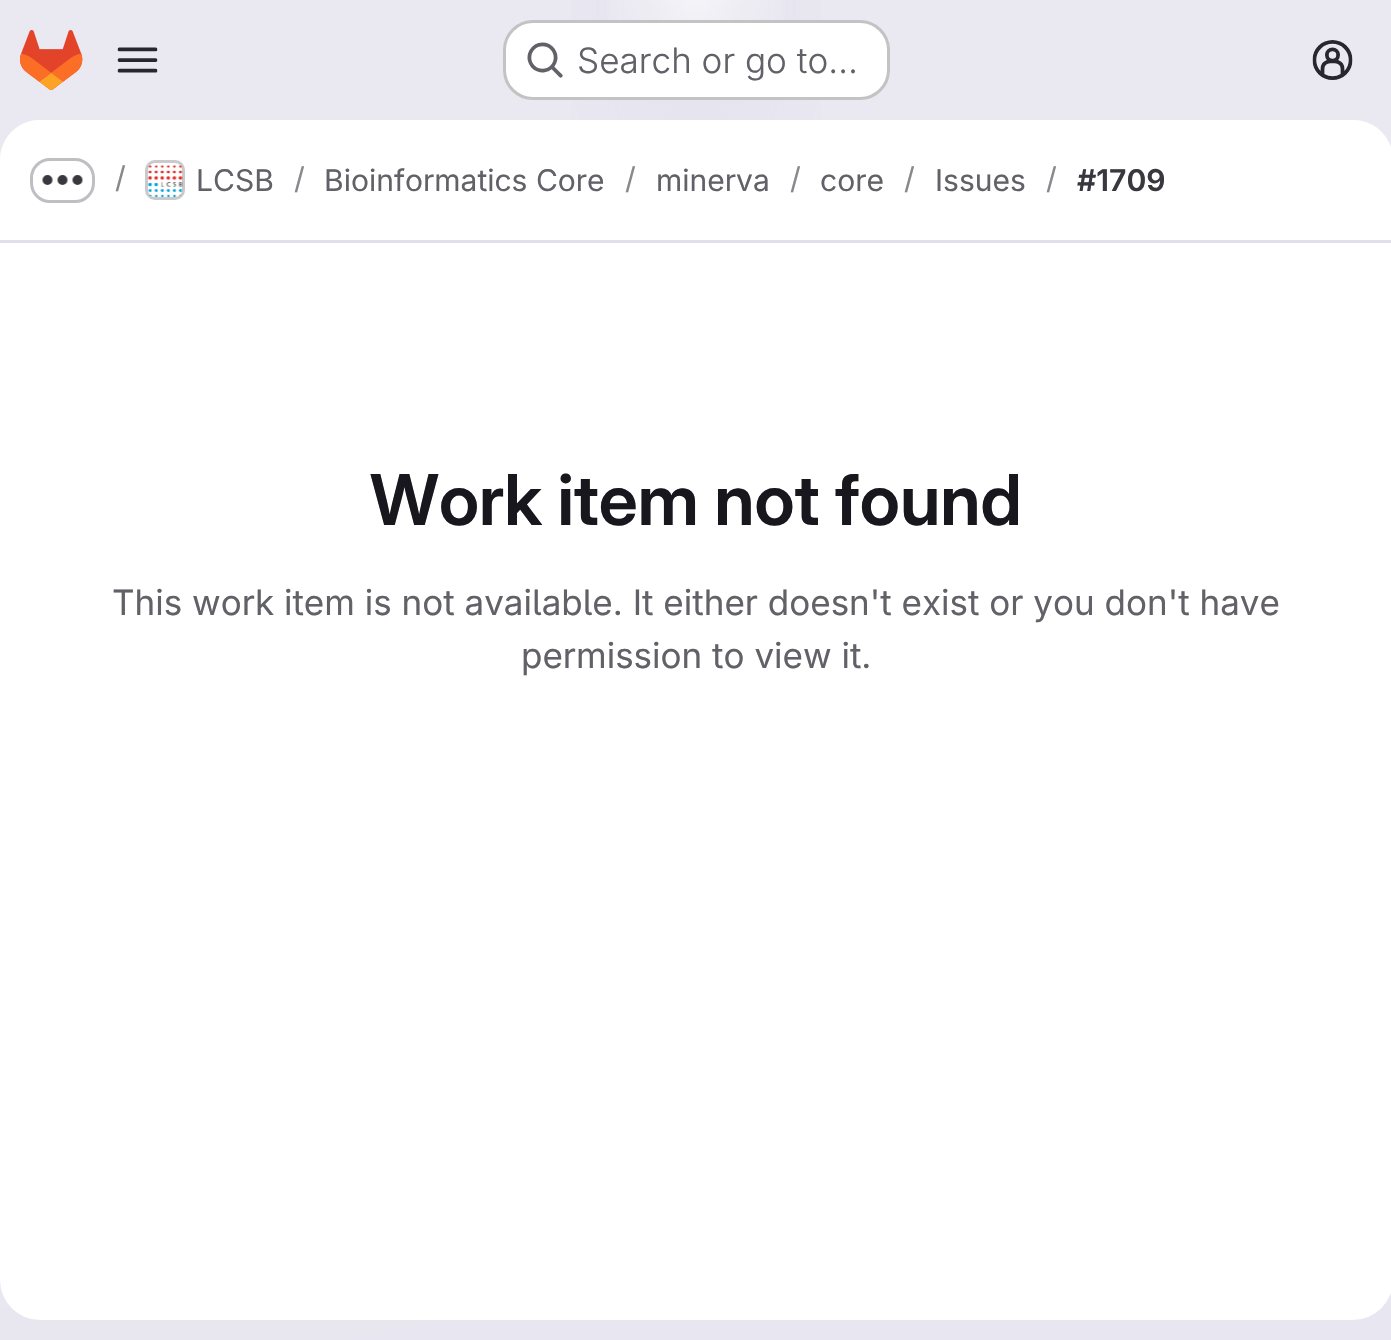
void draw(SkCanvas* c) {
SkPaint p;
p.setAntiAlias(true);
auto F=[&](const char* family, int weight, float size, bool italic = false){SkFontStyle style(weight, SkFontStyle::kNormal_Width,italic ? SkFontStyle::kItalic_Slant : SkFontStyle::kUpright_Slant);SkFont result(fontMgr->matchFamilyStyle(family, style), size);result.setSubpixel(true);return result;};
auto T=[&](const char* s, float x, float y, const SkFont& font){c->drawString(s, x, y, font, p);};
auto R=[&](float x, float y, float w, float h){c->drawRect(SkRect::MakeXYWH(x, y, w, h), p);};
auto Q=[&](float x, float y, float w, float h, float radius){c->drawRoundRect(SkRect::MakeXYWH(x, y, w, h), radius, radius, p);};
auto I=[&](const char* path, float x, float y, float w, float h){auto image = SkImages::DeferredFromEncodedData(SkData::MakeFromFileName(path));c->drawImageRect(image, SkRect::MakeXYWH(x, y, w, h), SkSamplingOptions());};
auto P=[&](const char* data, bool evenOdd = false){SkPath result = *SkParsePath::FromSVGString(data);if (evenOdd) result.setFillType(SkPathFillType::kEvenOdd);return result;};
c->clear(0xffffffff);
{
const SkColor colors[] = {0xffe8e6f0,0xffeae9f2};
const float stops[] = {0,.7};
const SkPoint ends[] = {{832,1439}, {561,-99}};
p.setShader(SkGradientShader::MakeLinear(ends, colors, stops, 2, SkTileMode::kClamp));
p.setAlpha(255);
}
R(0,0,1391,1340);
{
const SkColor colors[] = {0xffe4e2ed,0x00e4e2ed};
const float stops[] = {0,.25};
SkMatrix m = SkMatrix::Translate(696,0).preScale(696,1340);
p.setShader(SkGradientShader::MakeRadial({0, 0}, 1, colors, stops, 2, SkTileMode::kClamp, 0, &m));
p.setAlpha(255);
}
R(571,0,250,120);
{
const SkColor colors[] = {0xffe4e2ec,0x00e4e2ec};
const float stops[] = {0,.18};
SkMatrix m = SkMatrix::Translate(696,0).preScale(696,1340);
p.setShader(SkGradientShader::MakeRadial({0, 0}, 1, colors, stops, 2, SkTileMode::kClamp, 0, &m));
p.setAlpha(255);
}
R(644,6,104,95);
{
const SkColor colors[] = {0x99ffffff,0x00ffffff};
const float stops[] = {0,.07};
p.setShader(SkGradientShader::MakeRadial({696,0}, 1510, colors, stops, 2, SkTileMode::kClamp));
p.setAlpha(255);
}
R(607,0,178,20);
I("1.png",20,30,63,60);
I("2.png",117,47,41,26);
p.setShader(nullptr);
p.setColor(0xffffffff);
Q(503,20,387,80,30);
p.setStroke(true);
p.setStrokeWidth(3);
p.setColor(0x3d050506);
c->drawRoundRect(SkRect::MakeXYWH(504.5,21.5,384,77),28.5,28.5,p);
I("3.png",527,42,36,36);
auto f1 = F("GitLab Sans",300,35);
p.setStroke(false);
p.setColor(0xff626168);
T("Search or go to…",577,73,f1);
I("4.png",1312,40,41,40);
p.setColor(0xffffffff);
Q(0,120,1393,1200,40);
c->drawPath(P("M40 120h1313c22 0 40 18 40 40v83h-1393v-83c0-22 18-40 40-40z"),p);
p.setColor(0xffe1dfec);
R(0,240,1391,3);
p.setStroke(true);
p.setColor(0xffbfbfc3);
c->drawRoundRect(SkRect::MakeXYWH(31.5,159.5,62,42),18.5,18.5,p);
I("5.png",42,175,41,10);
auto f2 = F("GitLab Sans",400,30);
p.setStroke(false);
p.setColor(0xff89888d);
T("/",115,188,f2);
p.setStroke(true);
p.setColor(0xffdcdcde);
c->drawRoundRect(SkRect::MakeXYWH(146.5,161.5,37,37),8.5,8.5,p);
I("6.png",147,165,36,33);
p.setColor(0x14050506);
c->drawRoundRect(SkRect::MakeXYWH(146.5,161.5,37,37),8.5,8.5,p);
p.setStroke(false);
p.setColor(0xff626168);
T("LCSB",196,191,f2);
p.setColor(0xff89888d);
T("/",294,189,f2);
p.setColor(0xff626168);
T("Bioinformatics Core",324,191,f2);
p.setColor(0xff89888d);
T("/",625,189,f2);
p.setColor(0xff626168);
T("minerva",656,191,f2);
p.setColor(0xff89888d);
T("/",790,189,f2);
p.setColor(0xff626168);
T("core",820,191,f2);
p.setColor(0xff89888d);
T("/",904,189,f2);
p.setColor(0xff626168);
T("Issues",935,191,f2);
p.setColor(0xff89888d);
T("/",1046,189,f2);
auto f3 = F("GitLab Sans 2",600,30);
p.setColor(0xff3a383f);
T("#1709",1077,191,f3);
auto f4 = F("GitLab Sans",600,70);
p.setColor(0xff18171d);
T("Work item not found",370,525,f4);
auto f5 = F("GitLab Sans",400,35);
p.setColor(0xff626168);
T("This work item is not available. It either doesn't exist or you don't have",112,615,f5);
T("permission to view it.",521,668,f5);
}
